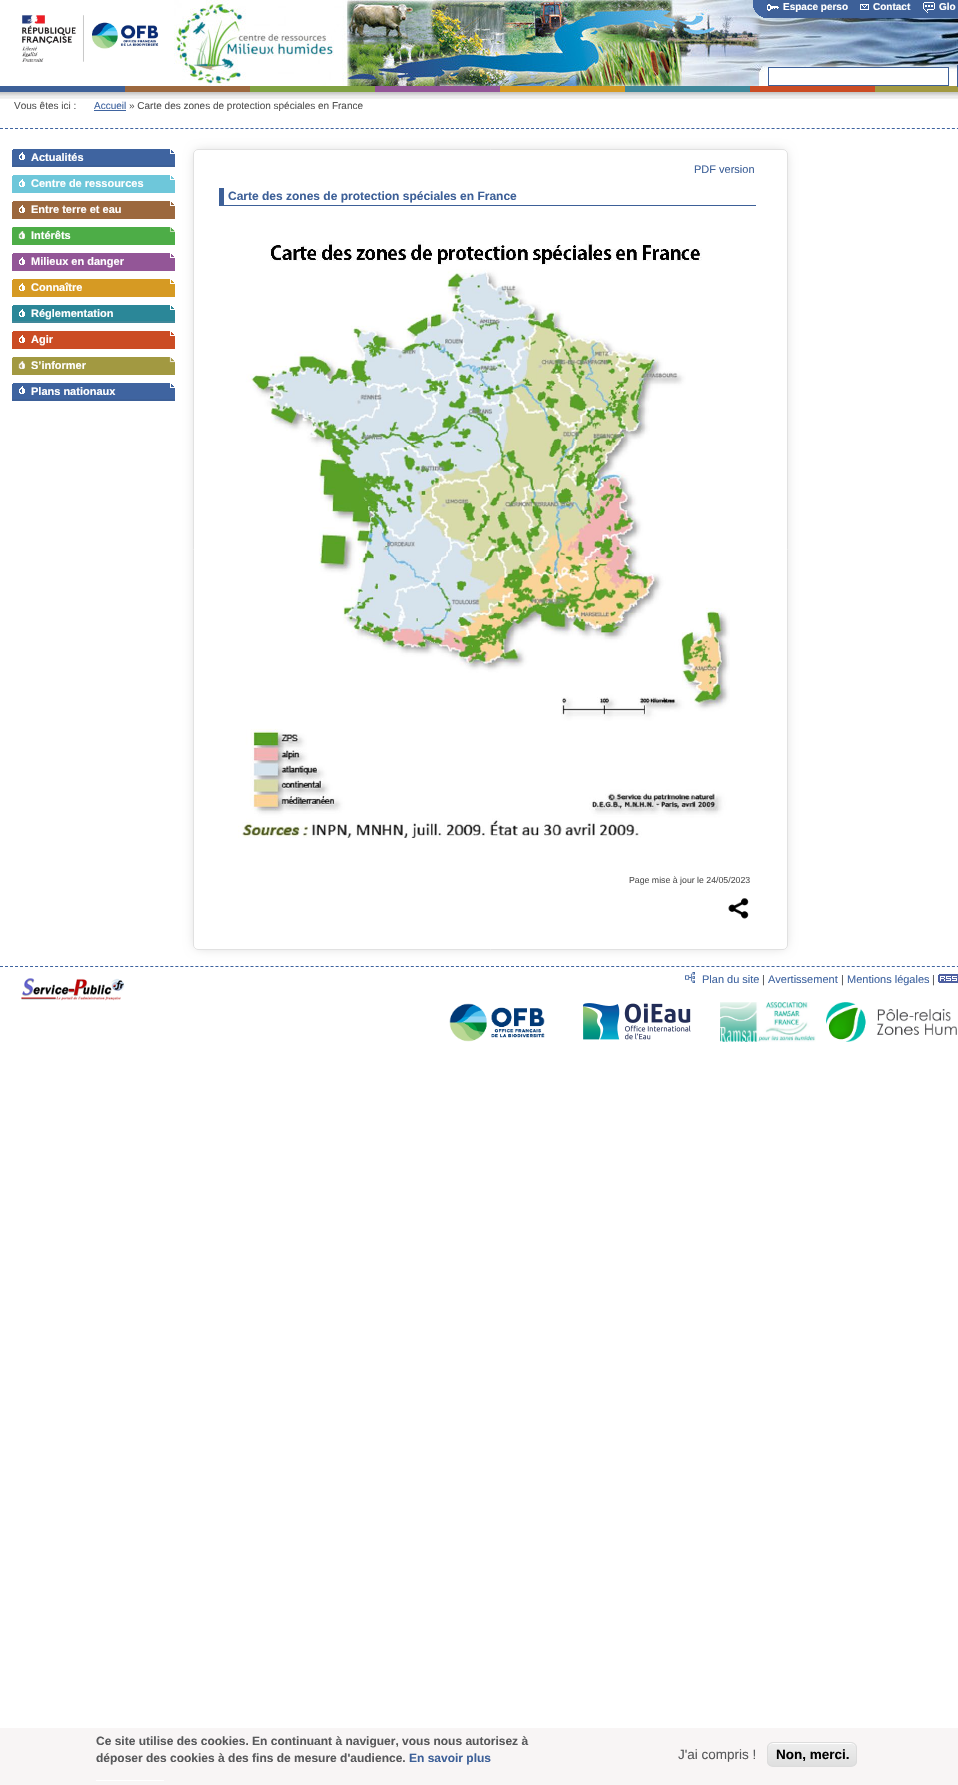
void draw(SkCanvas* c) {
SkPaint p;
p.setAntiAlias(true);
auto F=[&](const char* family, int weight, float size, bool italic = false){SkFontStyle style(weight, SkFontStyle::kNormal_Width,italic ? SkFontStyle::kItalic_Slant : SkFontStyle::kUpright_Slant);SkFont result(fontMgr->matchFamilyStyle(family, style), size);result.setSubpixel(true);return result;};
auto T=[&](const char* s, float x, float y, const SkFont& font){c->drawString(s, x, y, font, p);};
auto R=[&](float x, float y, float w, float h){c->drawRect(SkRect::MakeXYWH(x, y, w, h), p);};
auto I=[&](const char* path, float x, float y, float w, float h){auto image = SkImages::DeferredFromEncodedData(SkData::MakeFromFileName(path));c->drawImageRect(image, SkRect::MakeXYWH(x, y, w, h), SkSamplingOptions());};
auto P=[&](const char* data, bool evenOdd = false){SkPath result = *SkParsePath::FromSVGString(data);if (evenOdd) result.setFillType(SkPathFillType::kEvenOdd);return result;};
c->clear(0xffffffff);
I("1.png",0,92,958,7);
I("2.png",174,0,784,86);
I("3.png",753,0,14,18);
p.setColor(0xff3d6098);
R(767,0,191,18);
I("4.png",767,4,12,7);
auto f1 = F("Liberation Sans",700,10);
p.setColor(0xffffffff);
T("Espace perso",783,10,f1);
I("5.png",860,4,9,6);
T("Contact",873,10,f1);
I("6.png",923,2,12,11);
T("Glo",939,10,f1);
I("7.png",21,14,138,48);
p.setColor(0xff3d6098);
R(0,86,125,6);
p.setColor(0xff9c683e);
R(125,86,125,6);
p.setColor(0xff80a142);
R(250,86,125,6);
p.setColor(0xff935697);
R(375,86,125,6);
p.setColor(0xffd69a23);
R(500,86,125,6);
p.setColor(0xff3f889a);
R(625,86,125,6);
p.setColor(0xffcb4c24);
R(750,86,125,6);
p.setColor(0xffa29941);
R(875,86,83,6);
p.setColor(0xffffffff);
c->drawRect(SkRect::MakeXYWH(768.5,67.5,180,18),p);
p.setStroke(true);
p.setStrokeWidth(1);
p.setColor(0xff3d6098);
c->drawRect(SkRect::MakeXYWH(768.5,67.5,180,18),p);
p.setStroke(false);
R(957,65,1,22);
auto f2 = F("Liberation Sans",400,10);
p.setColor(0xff545454);
T("Vous êtes ici :",14,109,f2);
p.setColor(0xff3f64a0);
T("Accueil",94,109,f2);
R(94,110,32,1);
p.setColor(0xff545454);
T("» Carte des zones de protection spéciales en France",129,109,f2);
p.setStroke(true);
p.setColor(0xff3f64a0);
p.setPathEffect(SkDashPathEffect::Make({{3,2.01f}}, 0));
c->drawPath(P("M0 128.5h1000"),p);
p.setPathEffect(nullptr);
p.setStroke(false);
p.setColor(0xff3d6098);
R(12,165,163,2);
I("8.png",12,149,163,16);
auto f3 = F("Liberation Sans",700,11);
p.setColor(0xffffffff);
T("Actualités",31,161,f3);
p.setColor(0xff6ec7da);
R(12,187,163,6);
I("9.png",12,175,163,12);
p.setColor(0xffffffff);
T("Centre de ressources",31,187,f3);
p.setColor(0xff9c683e);
R(12,213,163,6);
I("10.png",12,201,163,12);
p.setColor(0xffffffff);
T("Entre terre et eau",31,213,f3);
p.setColor(0xff4dad47);
R(12,239,163,6);
I("11.png",12,227,163,12);
p.setColor(0xffffffff);
T("Intérêts",31,239,f3);
p.setColor(0xff935697);
R(12,265,163,6);
I("12.png",12,253,163,12);
p.setColor(0xffffffff);
T("Milieux en danger",31,265,f3);
p.setColor(0xffd69a23);
R(12,291,163,6);
I("13.png",12,279,163,12);
p.setColor(0xffffffff);
T("Connaître",31,291,f3);
p.setColor(0xff3f889a);
R(12,321,163,2);
I("14.png",12,305,163,16);
p.setColor(0xffffffff);
T("Réglementation",31,317,f3);
p.setColor(0xffcb4c24);
R(12,343,163,6);
I("15.png",12,331,163,12);
p.setColor(0xffffffff);
T("Agir",31,343,f3);
p.setColor(0xffa29941);
R(12,369,163,6);
I("16.png",12,357,163,12);
p.setColor(0xffffffff);
T("S’informer",31,369,f3);
p.setColor(0xff3d6098);
R(12,399,163,2);
I("8.png",12,383,163,16);
p.setColor(0xffffffff);
T("Plans nationaux",31,395,f3);
c->save();
c->clipPath(P("M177 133h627v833h-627zm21 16h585c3 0 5 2 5 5v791c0 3-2 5-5 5h-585c-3 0-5-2-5-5v-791c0-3 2-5 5-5z",true),true);
p.setColor(0xffcccccc);
p.setMaskFilter(SkMaskFilter::MakeBlur(kNormal_SkBlurStyle, 6));
c->drawRoundRect(SkRect::MakeXYWH(196,152,589,795),2,2,p);
p.setMaskFilter(nullptr);
c->restore();
p.setStroke(true);
p.setColor(0xffe1e1e1);
c->drawRoundRect(SkRect::MakeXYWH(193.5,149.5,594,800),4.5,4.5,p);
auto f4 = F("Liberation Sans",400,11);
p.setStroke(false);
p.setColor(0xff3d6098);
T("PDF version",694,173,f4);
R(219,205,537,1);
R(219,188,5,18);
auto f5 = F("Liberation Sans",700,12);
T("Carte des zones de protection spéciales en France",228,200,f5);
I("17.png",238,241,492,597);
auto f6 = F("Liberation Sans",400,8.75);
p.setColor(0xff545454);
T("Page mise à jour le 24/05/2023",629,883,f6);
I("18.png",728,898,21,21);
p.setStroke(true);
p.setColor(0xff3f64a0);
p.setPathEffect(SkDashPathEffect::Make({{3,2.01f}}, 0));
c->drawPath(P("M0 966.5h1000"),p);
p.setPathEffect(nullptr);
I("19.png",21,978,104,23);
I("20.png",685,972,10,11);
p.setStroke(false);
T("Plan du site",702,983,f4);
p.setColor(0xff545454);
T("|",762,983,f4);
p.setColor(0xff3f64a0);
T("Avertissement",768,983,f4);
p.setColor(0xff545454);
T("|",841,983,f4);
p.setColor(0xff3f64a0);
T("Mentions légales",847,983,f4);
p.setColor(0xff545454);
T("|",932,983,f4);
I("21.png",938,974,20,9);
I("22.png",449,1003,96,39);
I("23.png",583,1003,108,37);
I("24.png",720,1002,96,40);
I("25.png",826,1002,131,40);
p.setColor(0xfff8f5f5);
R(0,1728,958,57);
p.setColor(0xff58595b);
T("Ce site utilise des cookies. En continuant à naviguer, vous nous autorisez à",96,1745,f5);
T("déposer des cookies à des fins de mesure d'audience.",96,1762,f5);
p.setColor(0xff3d6098);
T("En savoir plus",409,1762,f5);
p.setColor(0xffffffff);
R(96,1780,68,1);
auto f7 = F("Liberation Sans",400,13.5);
p.setColor(0xff58595b);
T("J'ai compris !",678,1759,f7);
c->save();
c->clipPath(P("M773 1742h78c3.5 0 6 2.5 6 6v13c0 3.5-2.5 6-6 6h-78c-3.5 0-6-2.5-6-6v-13c0-3.5 2.5-6 6-6z"),true);
{
const SkColor colors[] = {0xffededed,0xffdfdfdf};
const float stops[] = {.05,1};
const SkPoint ends[] = {{812,1743}, {812,1766}};
p.setShader(SkGradientShader::MakeLinear(ends, colors, stops, 2, SkTileMode::kClamp));
p.setAlpha(255);
}
R(767,1743,90,23);
c->restore();
p.setShader(nullptr);
p.setColor(0xffffffff);
c->drawPath(P("M773 1744h78c3 0 5 2 5 5c0-9-12-6-18-6h-52c-6 0-18-3-18 6c0-3 2-5 5-5z"),p);
p.setStroke(true);
p.setColor(0xffdcdcdc);
c->drawRoundRect(SkRect::MakeXYWH(767.5,1742.5,89,24),5.5,5.5,p);
auto f8 = F("Liberation Sans",700,13.5);
p.setStroke(false);
p.setColor(0xff000000);
T("Non, merci.",776,1759,f8);
}
